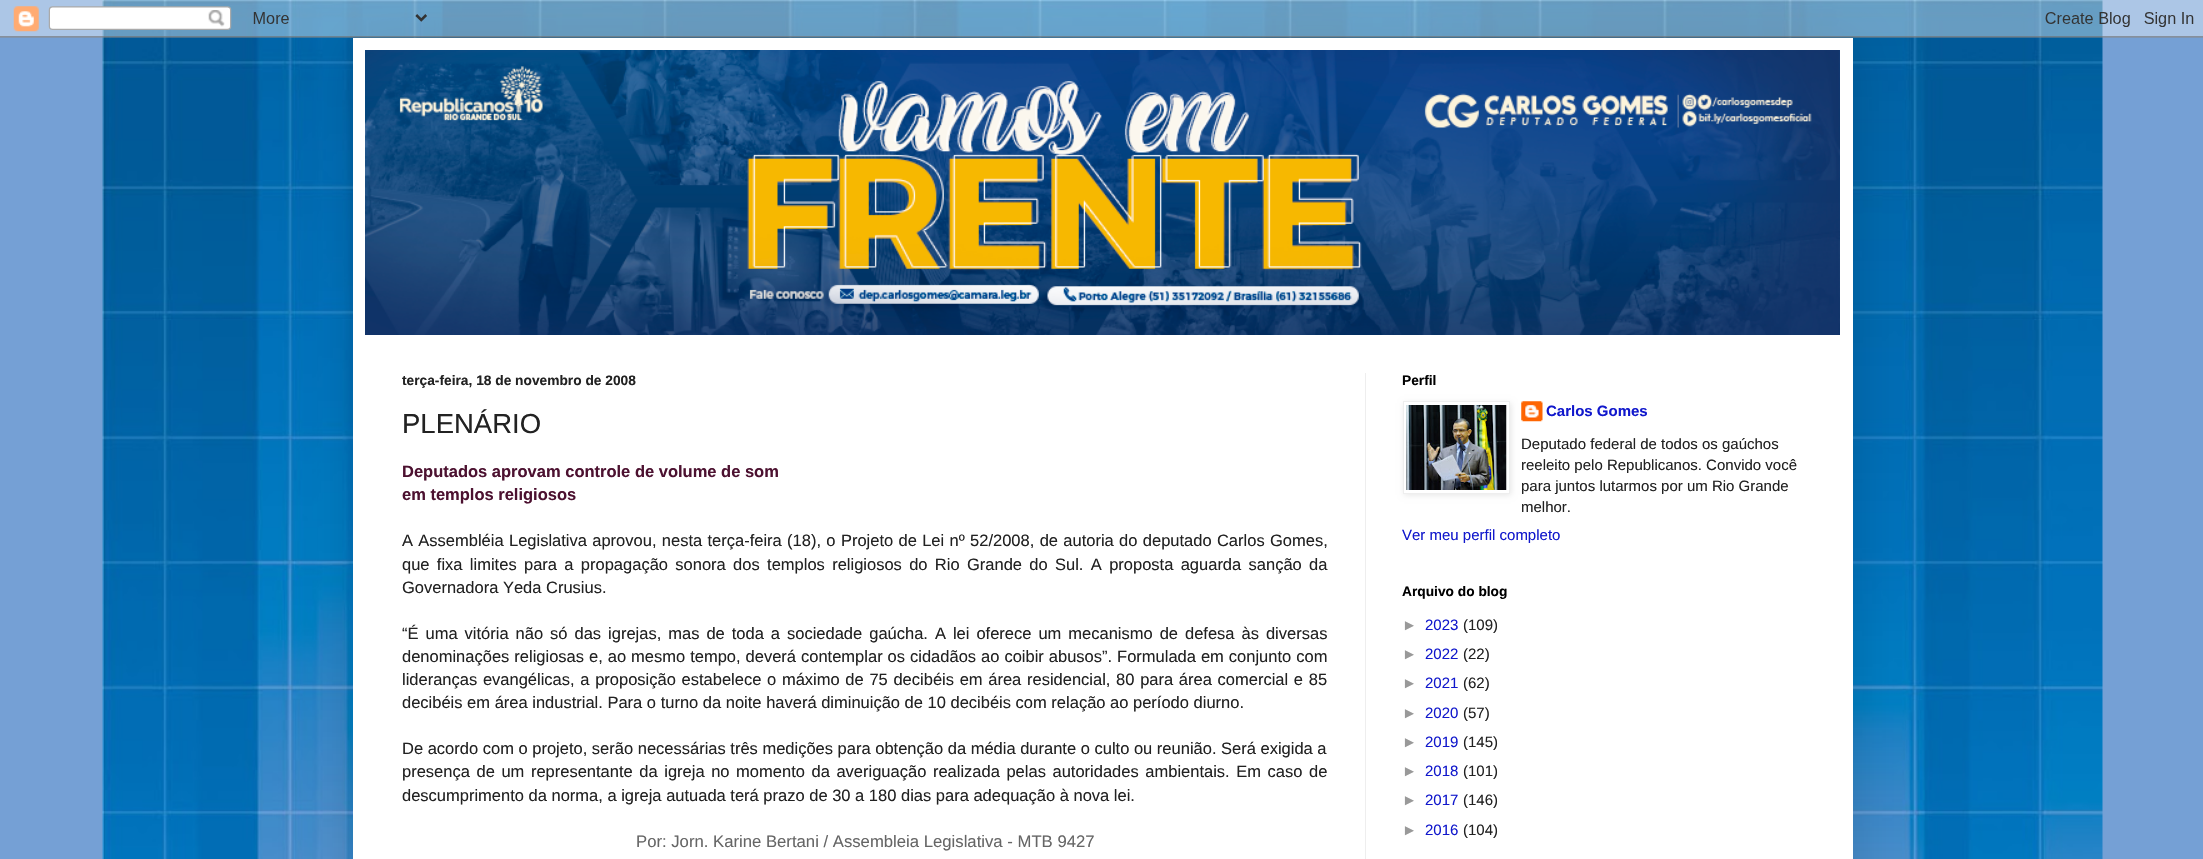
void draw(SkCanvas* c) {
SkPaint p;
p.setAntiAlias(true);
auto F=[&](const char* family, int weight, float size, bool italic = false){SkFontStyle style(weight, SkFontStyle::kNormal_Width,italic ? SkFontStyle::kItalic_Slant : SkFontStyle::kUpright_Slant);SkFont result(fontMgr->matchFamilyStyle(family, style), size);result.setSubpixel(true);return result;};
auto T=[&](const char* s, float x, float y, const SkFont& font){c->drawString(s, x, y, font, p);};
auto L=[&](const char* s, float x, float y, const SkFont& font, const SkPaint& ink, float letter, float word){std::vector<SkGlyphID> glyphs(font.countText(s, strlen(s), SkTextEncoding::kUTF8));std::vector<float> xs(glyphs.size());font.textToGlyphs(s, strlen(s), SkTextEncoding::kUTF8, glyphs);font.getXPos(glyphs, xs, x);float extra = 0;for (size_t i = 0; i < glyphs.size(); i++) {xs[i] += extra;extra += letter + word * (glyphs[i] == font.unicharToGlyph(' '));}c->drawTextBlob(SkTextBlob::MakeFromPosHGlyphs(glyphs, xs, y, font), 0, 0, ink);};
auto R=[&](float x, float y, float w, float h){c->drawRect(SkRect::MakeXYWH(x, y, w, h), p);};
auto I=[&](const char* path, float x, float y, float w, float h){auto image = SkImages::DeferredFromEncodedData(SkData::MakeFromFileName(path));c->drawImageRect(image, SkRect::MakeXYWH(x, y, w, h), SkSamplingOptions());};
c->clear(0xff75a0d5);
I("1.png",102,0,2001,859);
p.setColor(0x26000000);
p.setMaskFilter(SkMaskFilter::MakeBlur(kNormal_SkBlurStyle, 25));
c->drawRect(SkRect::MakeXYWH(353,38,1500,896),p);
p.setMaskFilter(nullptr);
I("2.png",0,0,2203,38);
p.setColor(0xffffffff);
R(353,38,1500,821);
I("3.png",365,50,1475,285);
p.setColor(0xffeeeeee);
R(1365,373,1,486);
auto f1 = F("Liberation Sans",700,13.75);
p.setColor(0xff222222);
T("terça-feira, 18 de novembro de 2008",402,385,f1);
auto f2 = F("Liberation Sans",400,27.5);
T("PLENÁRIO",402,433,f2);
auto f3 = F("Liberation Sans",700,16.5);
p.setColor(0xff4c1130);
T("Deputados aprovam controle de volume de som",402,477,f3);
T("em templos religiosos",402,500,f3);
auto f4 = F("Liberation Sans",400,16.5);
p.setColor(0xff222222);
L("A Assembléia Legislativa aprovou, nesta terça-feira (18), o Projeto de Lei nº 52/2008, de autoria do deputado Carlos Gomes,",402,546,f4,p,0,.75);
L("que fixa limites para a propagação sonora dos templos religiosos do Rio Grande do Sul. A proposta aguarda sanção da",402,570,f4,p,0,2.75);
T("Governadora Yeda Crusius.",402,593,f4);
L("“É uma vitória não só das igrejas, mas de toda a sociedade gaúcha. A lei oferece um mecanismo de defesa às diversas",402,639,f4,p,0,2.4);
L("denominações religiosas e, ao mesmo tempo, deverá contemplar os cidadãos ao coibir abusos”. Formulada em conjunto com",402,662,f4,p,0,.4);
L("lideranças evangélicas, a proposição estabelece o máximo de 75 decibéis em área residencial, 80 para área comercial e 85",402,685,f4,p,0,1.1);
T("decibéis em área industrial. Para o turno da noite haverá diminuição de 10 decibéis com relação ao período diurno.",402,708,f4);
T("De acordo com o projeto, serão necessárias três medições para obtenção da média durante o culto ou reunião. Será exigida a",402,754,f4);
L("presença de um representante da igreja no momento da averiguação realizada pelas autoridades ambientais. Em caso de",402,777,f4,p,0,2);
T("descumprimento da norma, a igreja autuada terá prazo de 30 a 180 dias para adequação à nova lei.",402,801,f4);
auto f5 = F("Liberation Sans",400,16.7);
p.setColor(0xff666666);
T("Por: Jorn. Karine Bertani / Assembleia Legislativa - MTB 9427",636,847,f5);
p.setColor(0xff000000);
T("Perfil",1402,385,f1);
p.setColor(0x1a000000);
p.setMaskFilter(SkMaskFilter::MakeBlur(kNormal_SkBlurStyle, 3));
c->drawRect(SkRect::MakeXYWH(1404,403,107,92),p);
p.setMaskFilter(nullptr);
p.setColor(0xffffffff);
c->drawRect(SkRect::MakeXYWH(1403.5,401.5,106,92),p);
p.setStroke(true);
p.setStrokeWidth(1);
p.setColor(0xffeeeeee);
c->drawRect(SkRect::MakeXYWH(1403.5,401.5,106,92),p);
I("4.png",1406,405,101,85);
I("5.png",1521,401,22,21);
auto f6 = F("Liberation Sans",700,15);
p.setStroke(false);
p.setColor(0xff1118cc);
T("Carlos Gomes",1546,416,f6);
auto f7 = F("Liberation Sans",400,15);
p.setColor(0xff222222);
T("Deputado federal de todos os gaúchos",1521,449,f7);
T("reeleito pelo Republicanos. Convido você",1521,470,f7);
T("para juntos lutarmos por um Rio Grande",1521,491,f7);
T("melhor.",1521,512,f7);
p.setColor(0xff1118cc);
T("Ver meu perfil completo",1402,540,f7);
p.setColor(0xff000000);
T("Arquivo do blog",1402,596,f1);
p.setColor(0xff999999);
T("►",1402,630,f7);
p.setColor(0xff1118cc);
T("2023",1425,630,f7);
p.setColor(0xff222222);
T("(109)",1463,630,f7);
p.setColor(0xff999999);
T("►",1402,659,f7);
p.setColor(0xff1118cc);
T("2022",1425,659,f7);
p.setColor(0xff222222);
T("(22)",1463,659,f7);
p.setColor(0xff999999);
T("►",1402,688,f7);
p.setColor(0xff1118cc);
T("2021",1425,688,f7);
p.setColor(0xff222222);
T("(62)",1463,688,f7);
p.setColor(0xff999999);
T("►",1402,718,f7);
p.setColor(0xff1118cc);
T("2020",1425,718,f7);
p.setColor(0xff222222);
T("(57)",1463,718,f7);
p.setColor(0xff999999);
T("►",1402,747,f7);
p.setColor(0xff1118cc);
T("2019",1425,747,f7);
p.setColor(0xff222222);
T("(145)",1463,747,f7);
p.setColor(0xff999999);
T("►",1402,776,f7);
p.setColor(0xff1118cc);
T("2018",1425,776,f7);
p.setColor(0xff222222);
T("(101)",1463,776,f7);
p.setColor(0xff999999);
T("►",1402,805,f7);
p.setColor(0xff1118cc);
T("2017",1425,805,f7);
p.setColor(0xff222222);
T("(146)",1463,805,f7);
p.setColor(0xff999999);
T("►",1402,835,f7);
p.setColor(0xff1118cc);
T("2016",1425,835,f7);
p.setColor(0xff222222);
T("(104)",1463,835,f7);
}
